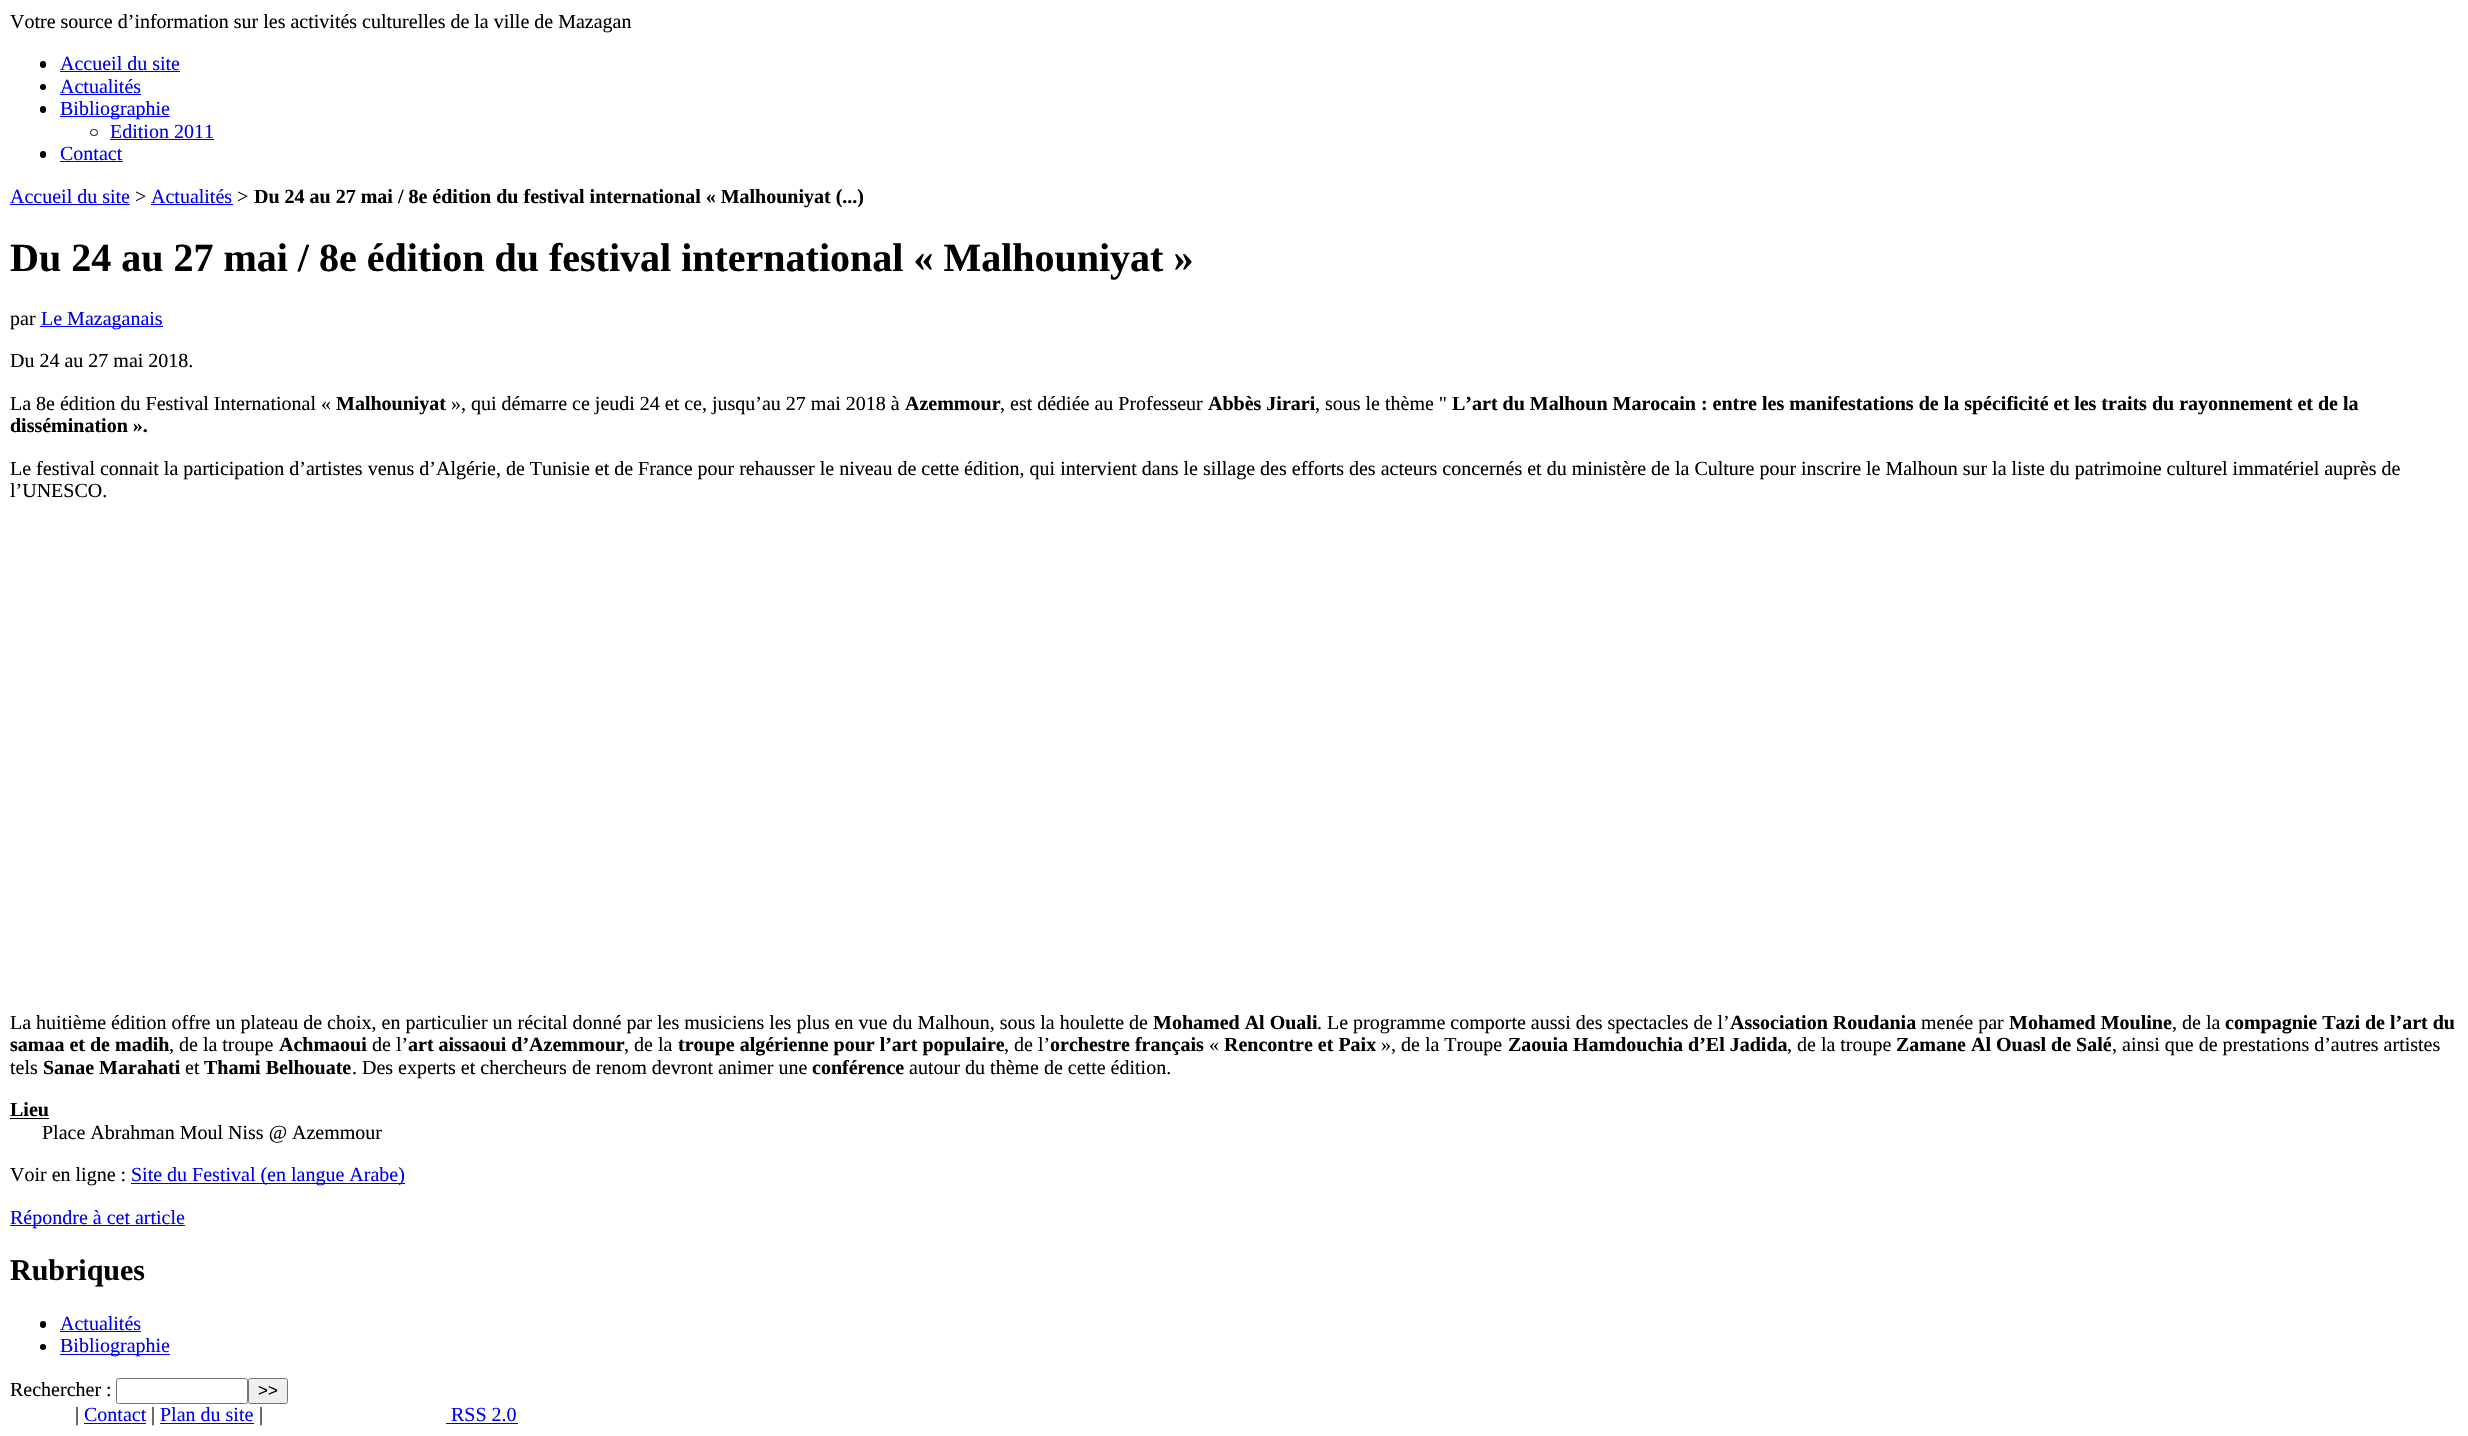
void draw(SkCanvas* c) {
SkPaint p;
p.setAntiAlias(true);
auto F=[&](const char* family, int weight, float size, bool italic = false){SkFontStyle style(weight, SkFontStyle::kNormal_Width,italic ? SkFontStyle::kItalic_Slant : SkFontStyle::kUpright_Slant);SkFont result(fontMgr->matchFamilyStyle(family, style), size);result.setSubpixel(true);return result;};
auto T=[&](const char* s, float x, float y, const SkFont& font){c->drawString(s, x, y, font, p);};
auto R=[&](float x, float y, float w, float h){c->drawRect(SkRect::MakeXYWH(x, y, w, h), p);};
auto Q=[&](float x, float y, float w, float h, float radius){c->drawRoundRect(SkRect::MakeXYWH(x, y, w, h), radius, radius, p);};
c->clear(0xffffffff);
auto f1 = F("Liberation Serif",400,20);
p.setColor(0xff000000);
T("Votre source d’information sur les activités culturelles de la ville de Mazagan",10,28,f1);
Q(40,61,6,7,3);
p.setColor(0xff0000ee);
T("Accueil du site",60,70,f1);
R(60,71,120,1);
p.setColor(0xff000000);
c->drawCircle(43,87,3,p);
p.setColor(0xff0000ee);
T("Actualités",60,93,f1);
R(60,94,81,1);
p.setColor(0xff000000);
Q(40,106,6,7,3);
p.setColor(0xff0000ee);
R(60,116,110,1);
T("Bibliographie",60,115,f1);
p.setStroke(true);
p.setStrokeWidth(1);
p.setColor(0xff000000);
c->drawRoundRect(SkRect::MakeXYWH(90.5,129.5,7,6),3,3,p);
p.setStroke(false);
p.setColor(0xff0000ee);
T("Edition 2011",110,138,f1);
R(110,139,104,1);
p.setColor(0xff000000);
Q(40,151,6,7,3);
p.setColor(0xff0000ee);
T("Contact",60,160,f1);
R(60,161,63,1);
T("Accueil du site",10,203,f1);
R(10,204,120,1);
p.setColor(0xff000000);
T(">",135,203,f1);
p.setColor(0xff0000ee);
T("Actualités",151,203,f1);
R(151,204,82,1);
p.setColor(0xff000000);
T(">",237,203,f1);
auto f2 = F("Liberation Serif",700,20);
T("Du 24 au 27 mai / 8e édition du festival international « Malhouniyat (...)",254,203,f2);
auto f3 = F("Liberation Serif",700,40);
T("Du 24 au 27 mai / 8e édition du festival international « Malhouniyat »",10,271,f3);
T("par",10,325,f1);
p.setColor(0xff0000ee);
R(40,326,123,1);
T("Le Mazaganais",41,325,f1);
p.setColor(0xff000000);
T("Du 24 au 27 mai 2018.",10,367,f1);
T("La 8e édition du Festival International «",10,410,f1);
T("Malhouniyat",336,410,f2);
T("», qui démarre ce jeudi 24 et ce, jusqu’au 27 mai 2018 à",451,410,f1);
T("Azemmour",905,410,f2);
T(", est dédiée au Professeur",1000,410,f1);
T("Abbès Jirari",1208,410,f2);
T(", sous le thème \"",1315,410,f1);
T("L’art du Malhoun Marocain : entre les manifestations de la spécificité et les traits du rayonnement et de la",1452,410,f2);
T("dissémination ».",10,432,f2);
T("Le festival connait la participation d’artistes venus d’Algérie, de Tunisie et de France pour rehausser le niveau de cette édition, qui intervient dans le sillage des efforts des acteurs concernés et du ministère de la Culture pour inscrire le Malhoun sur la liste du patrimoine culturel immatériel auprès de",10,475,f1);
T("l’UNESCO.",10,497,f1);
T("La huitième édition offre un plateau de choix, en particulier un récital donné par les musiciens les plus en vue du Malhoun, sous la houlette de",10,1029,f1);
T("Mohamed Al Ouali",1153,1029,f2);
T(". Le programme comporte aussi des spectacles de l’",1317,1029,f1);
T("Association Roudania",1730,1029,f2);
T("menée par",1921,1029,f1);
T("Mohamed Mouline",2009,1029,f2);
T(", de la",2172,1029,f1);
T("compagnie Tazi de l’art du",2225,1029,f2);
T("samaa et de madih",10,1051,f2);
T(", de la troupe",169,1051,f1);
T("Achmaoui",279,1051,f2);
T("de l’",372,1051,f1);
T("art aissaoui d’Azemmour",408,1051,f2);
T(", de la",624,1051,f1);
T("troupe algérienne pour l’art populaire",678,1051,f2);
T(", de l’",1004,1051,f1);
T("orchestre français",1050,1051,f2);
T("«",1209,1051,f1);
T("Rencontre et Paix",1224,1051,f2);
T("», de la Troupe",1381,1051,f1);
T("Zaouia Hamdouchia d’El Jadida",1508,1051,f2);
T(", de la troupe",1787,1051,f1);
T("Zamane Al Ouasl de Salé",1896,1051,f2);
T(", ainsi que de prestations d’autres artistes",2112,1051,f1);
T("tels",10,1074,f1);
T("Sanae Marahati",43,1074,f2);
T("et",185,1074,f1);
T("Thami Belhouate",204,1074,f2);
T(". Des experts et chercheurs de renom devront animer une",352,1074,f1);
T("conférence",812,1074,f2);
T("autour du thème de cette édition.",909,1074,f1);
T("Lieu",10,1116,f2);
R(10,1118,39,1);
T("Place Abrahman Moul Niss @ Azemmour",42,1139,f1);
T("Voir en ligne :",10,1181,f1);
p.setColor(0xff0000ee);
R(131,1183,274,1);
T("Site du Festival (en langue Arabe)",131,1181,f1);
R(10,1225,175,1);
T("Répondre à cet article",10,1224,f1);
auto f4 = F("Liberation Serif",700,30);
p.setColor(0xff000000);
T("Rubriques",10,1280,f4);
Q(40,1321,6,7,3);
p.setColor(0xff0000ee);
T("Actualités",60,1330,f1);
R(60,1331,81,1);
p.setColor(0xff000000);
c->drawCircle(43,1347,3,p);
p.setColor(0xff0000ee);
R(60,1354,110,1);
T("Bibliographie",60,1352,f1);
p.setColor(0xff000000);
T("Rechercher :",10,1396,f1);
p.setStroke(true);
p.setColor(0xff767676);
c->drawRoundRect(SkRect::MakeXYWH(116.5,1378.5,131,25),2,2,p);
p.setStroke(false);
p.setColor(0xffefefef);
c->drawRoundRect(SkRect::MakeXYWH(248.5,1378.5,39,25),2,2,p);
p.setStroke(true);
p.setColor(0xff767676);
c->drawRoundRect(SkRect::MakeXYWH(248.5,1378.5,39,25),2,2,p);
auto f5 = F("Liberation Sans",400,17);
p.setStroke(false);
p.setColor(0xff000000);
T(">>",258,1396,f5);
T("|",75,1421,f1);
p.setColor(0xff0000ee);
T("Contact",84,1421,f1);
R(84,1423,62,1);
p.setColor(0xff000000);
T("|",151,1421,f1);
p.setColor(0xff0000ee);
T("Plan du site",160,1421,f1);
R(160,1423,94,1);
p.setColor(0xff000000);
T("|",259,1421,f1);
p.setColor(0xff0000ee);
T("RSS 2.0",451,1421,f1);
R(446,1423,72,1);
}
